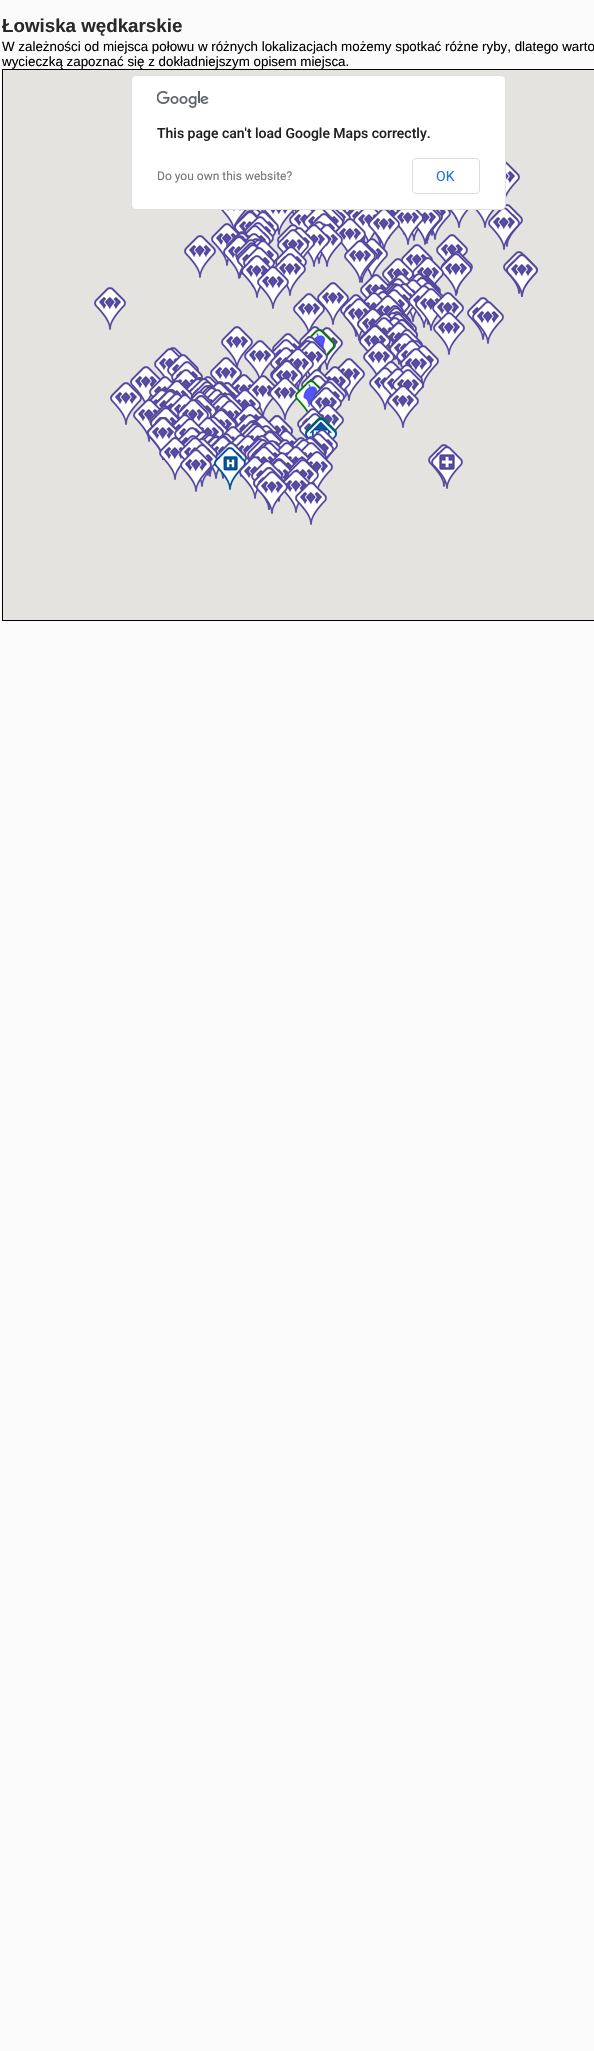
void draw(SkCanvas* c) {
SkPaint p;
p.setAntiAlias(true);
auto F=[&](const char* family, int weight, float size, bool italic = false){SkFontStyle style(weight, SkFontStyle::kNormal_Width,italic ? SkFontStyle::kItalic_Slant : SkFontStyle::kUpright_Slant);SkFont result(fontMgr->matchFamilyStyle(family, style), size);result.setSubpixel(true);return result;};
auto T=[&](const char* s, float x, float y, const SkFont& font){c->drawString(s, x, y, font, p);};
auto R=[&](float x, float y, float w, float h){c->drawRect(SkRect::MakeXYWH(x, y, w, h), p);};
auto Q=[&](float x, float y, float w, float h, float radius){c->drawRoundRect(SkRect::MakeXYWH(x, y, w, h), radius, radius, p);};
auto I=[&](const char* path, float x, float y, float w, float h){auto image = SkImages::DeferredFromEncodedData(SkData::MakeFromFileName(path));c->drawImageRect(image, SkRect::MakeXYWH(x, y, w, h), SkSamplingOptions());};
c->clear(0xfffbfbfb);
auto f1 = F("Liberation Sans",700,18.75);
p.setColor(0xff292929);
T("Łowiska wędkarskie",2,32,f1);
auto f2 = F("Liberation Sans",400,13.35);
p.setColor(0xff000000);
T("W zależności od miejsca połowu w różnych lokalizacjach możemy spotkać różne ryby, dlatego warto",2,51,f2);
T("wycieczką zapoznać się z dokładniejszym opisem miejsca.",2,66,f2);
p.setStroke(true);
p.setStrokeWidth(1);
c->drawRect(SkRect::MakeXYWH(2.5,69.5,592,551),p);
p.setStroke(false);
p.setColor(0xffe5e3df);
R(3,70,591,550);
I("1.png",94,235,111,95);
I("2.png",205,210,256,120);
I("3.png",461,161,77,169);
I("4.png",110,347,95,145);
I("5.png",205,330,256,195);
I("6.png",461,330,34,136);
p.setColor(0xffffffff);
Q(131,75,375,135,5);
p.setStroke(true);
p.setColor(0x1f000000);
c->drawRoundRect(SkRect::MakeXYWH(131.5,75.5,374,134),4.5,4.5,p);
I("7.png",157,91,52,17);
auto f3 = F("Roboto",500,14);
p.setStroke(false);
p.setColor(0xff212121);
T("This page can't load Google Maps correctly.",157,138,f3);
auto f4 = F("Roboto",400,12);
p.setColor(0xff757575);
T("Do you own this website?",157,180,f4);
p.setStroke(true);
p.setColor(0xffdadce0);
c->drawRoundRect(SkRect::MakeXYWH(412.5,158.5,67,35),3.5,3.5,p);
auto f5 = F("Roboto",400,14);
p.setStroke(false);
p.setColor(0xff1a73e8);
T("OK",436,181,f5);
}
